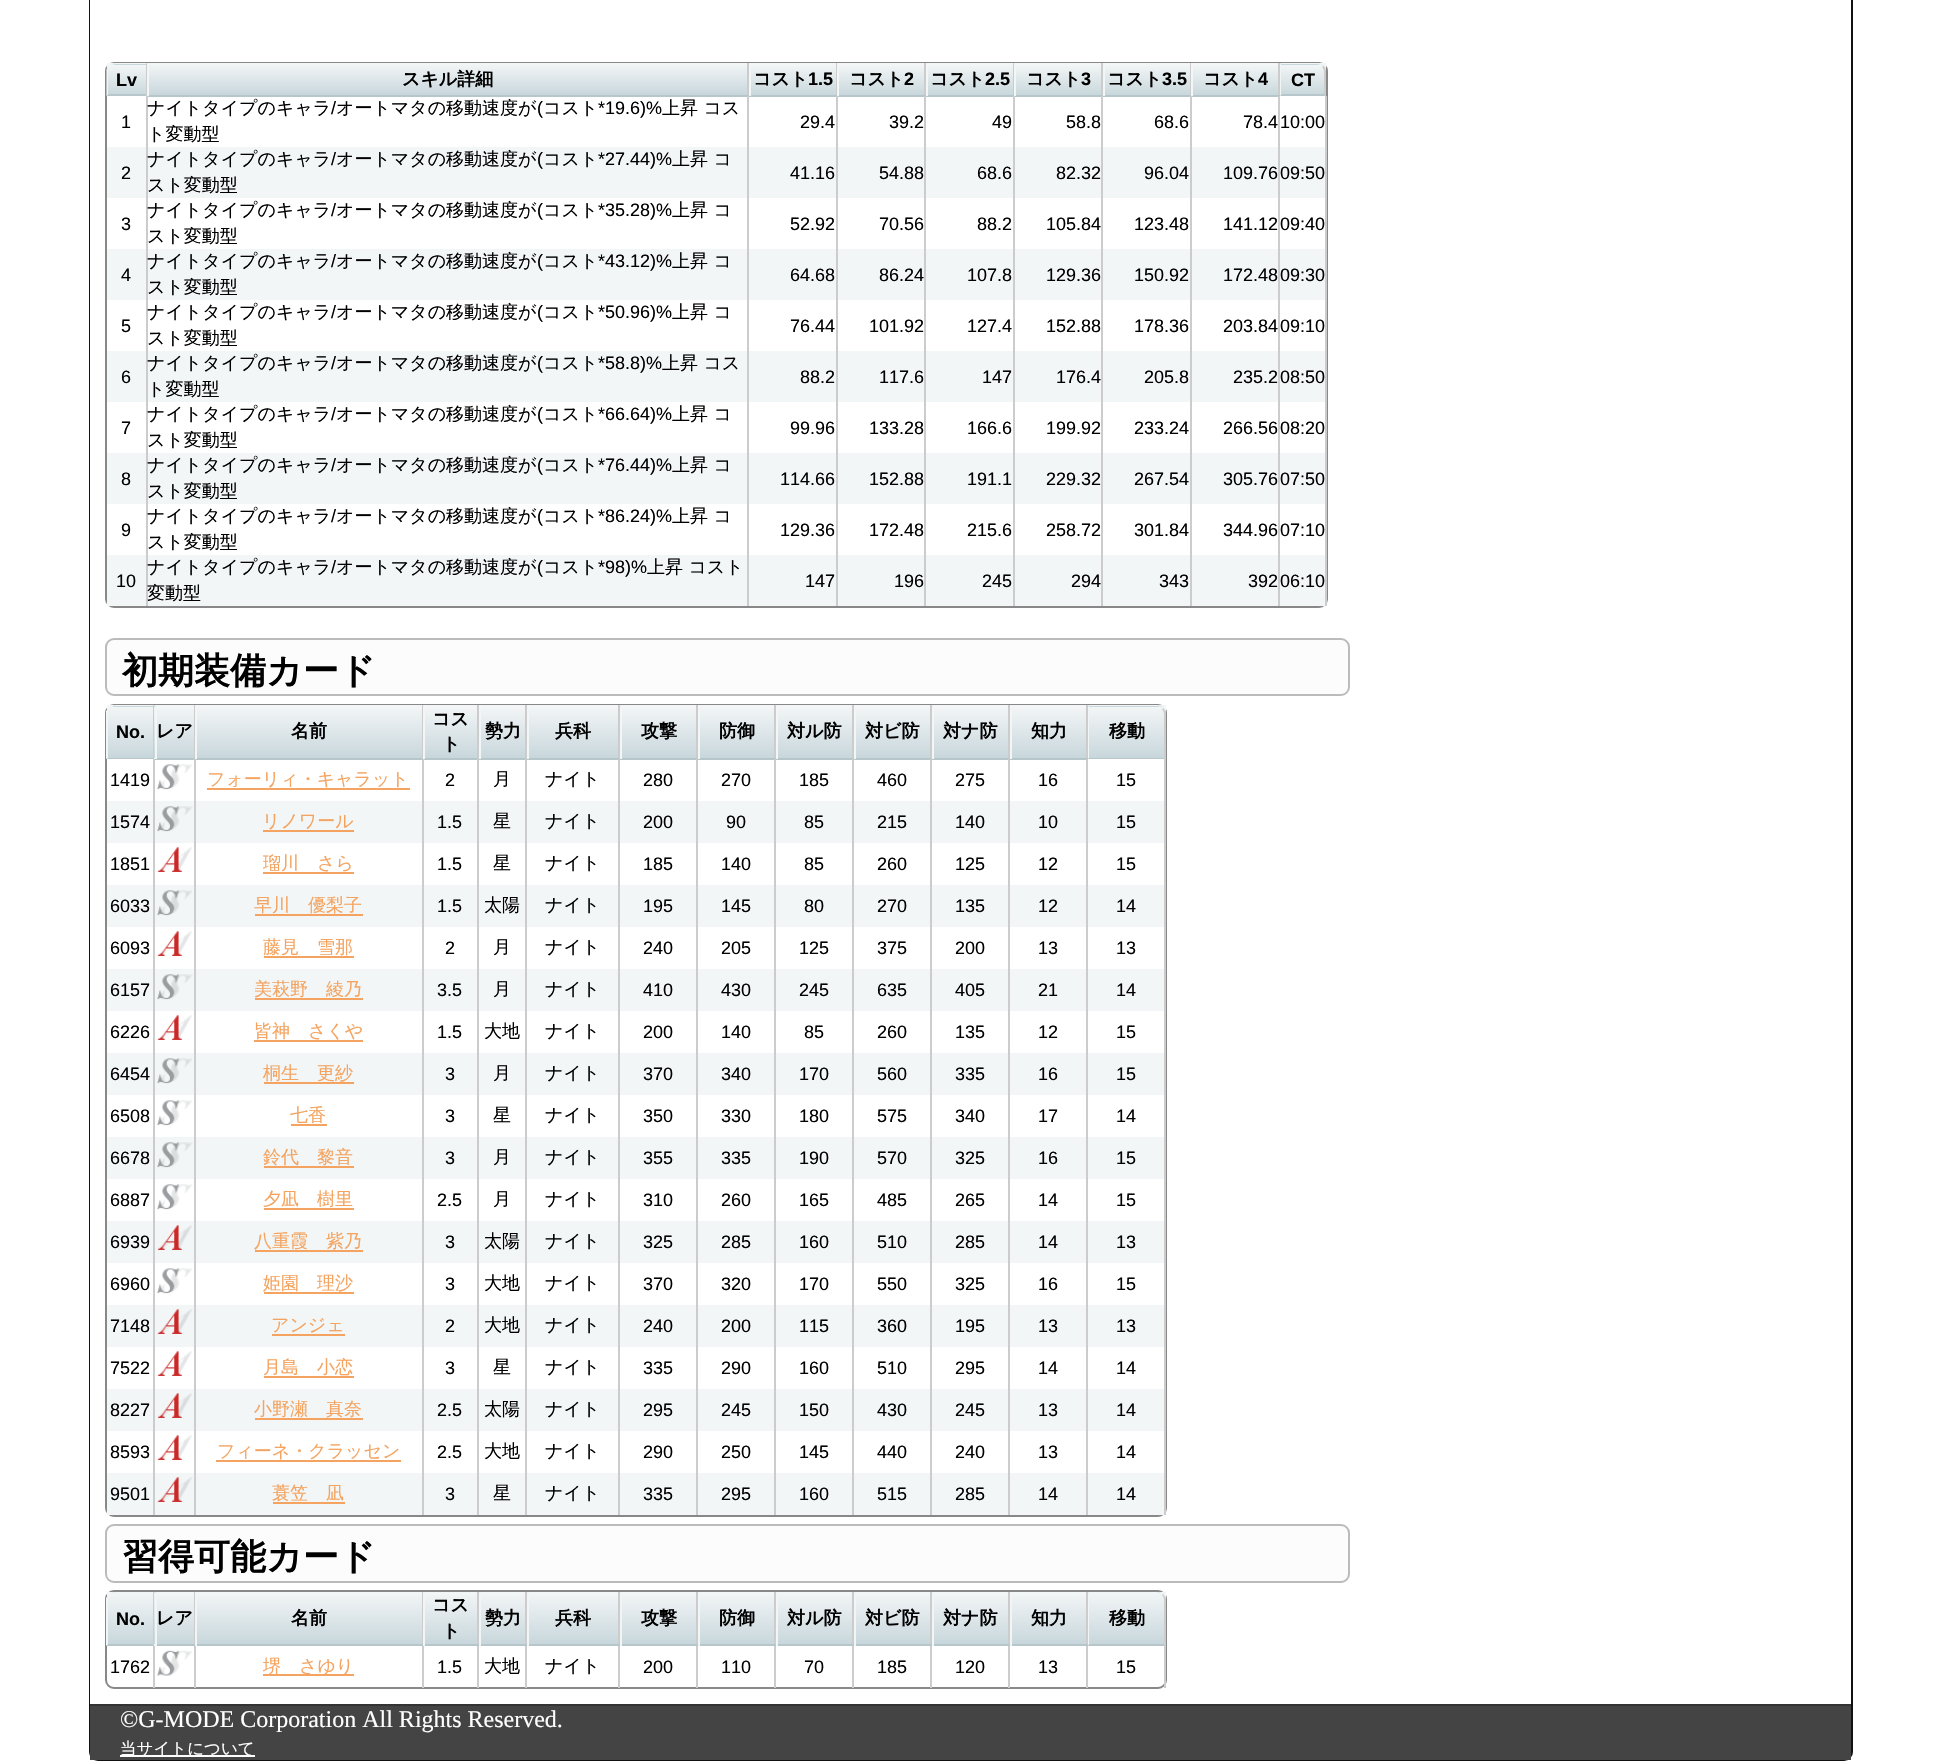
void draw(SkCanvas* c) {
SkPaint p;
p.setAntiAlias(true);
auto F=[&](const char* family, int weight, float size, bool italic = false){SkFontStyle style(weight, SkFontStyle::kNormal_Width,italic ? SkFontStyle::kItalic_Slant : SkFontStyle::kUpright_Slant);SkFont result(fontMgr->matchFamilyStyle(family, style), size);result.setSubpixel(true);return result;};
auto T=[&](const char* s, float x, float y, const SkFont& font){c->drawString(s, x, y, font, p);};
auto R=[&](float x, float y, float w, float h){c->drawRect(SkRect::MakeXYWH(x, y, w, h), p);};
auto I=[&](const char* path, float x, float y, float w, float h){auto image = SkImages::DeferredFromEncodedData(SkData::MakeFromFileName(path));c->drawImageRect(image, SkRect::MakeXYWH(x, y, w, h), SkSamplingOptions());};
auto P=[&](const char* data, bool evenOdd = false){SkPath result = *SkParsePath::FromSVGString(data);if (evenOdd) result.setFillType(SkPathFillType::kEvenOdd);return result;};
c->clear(0xffffffff);
p.setStroke(true);
p.setStrokeWidth(2);
p.setColor(0xff111111);
c->drawRoundRect(SkRect::MakeXYWH(90,-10,1762,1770),8,8,p);
p.setStroke(false);
p.setColor(0xffffffff);
R(90,0,1,1704);
p.setStroke(true);
p.setColor(0xff888888);
c->drawRoundRect(SkRect::MakeXYWH(106,63,1221,544),8,8,p);
p.setStroke(false);
p.setColor(0xfff3f6f7);
R(107,63,1219,33);
c->save();
c->clipPath(P("M116 63h31v33h-40v-24c0-5 4-9 9-9z"),true);
{
const SkColor colors[] = {0xfff2f5f6,0xffe3eaed,0xffc8d7dc};
const float stops[] = {0,.37,1};
const SkPoint ends[] = {{127,35}, {127,65}};
p.setShader(SkGradientShader::MakeLinear(ends, colors, stops, 3, SkTileMode::kClamp));
p.setAlpha(255);
}
R(107,63,40,2);
{
const SkColor colors[] = {0xfff2f5f6,0xffe3eaed,0xffc8d7dc};
const float stops[] = {0,.37,1};
const SkPoint ends[] = {{127,65}, {127,95}};
p.setShader(SkGradientShader::MakeLinear(ends, colors, stops, 3, SkTileMode::kClamp));
p.setAlpha(255);
}
R(107,65,39,30);
c->restore();
p.setShader(nullptr);
p.setColor(0xfff3f6f7);
c->drawPath(P("M116 63c-2.5 0-5 1-7 2.5l1 1c1.5-1.5 3.5-2.5 6-2.5h30l1-1z"),p);
p.setColor(0xffcccccc);
c->drawPath(P("M147 63l-1 1v30h-1l2 2z"),p);
p.setColor(0xffb7c6cb);
c->drawPath(P("M147 96l-2-2h-37l-2 2z"),p);
p.setColor(0xfff2f5f6);
c->drawPath(P("M106.5 96v-26.5c.5-1.5 1.5-3 2.5-4l1 1c-1.5 1.5-2 3.5-2 5.5v22h.5z"),p);
auto f1 = F("Liberation Sans",700,18);
p.setColor(0xff000000);
T("Lv",116,86,f1);
{
const SkColor colors[] = {0xfff2f5f6,0xffe3eaed,0xffc8d7dc};
const float stops[] = {0,.37,1};
const SkPoint ends[] = {{448,64}, {448,95}};
p.setShader(SkGradientShader::MakeLinear(ends, colors, stops, 3, SkTileMode::kClamp));
p.setAlpha(255);
}
R(149,65,598,30);
p.setShader(nullptr);
p.setColor(0xffcccccc);
R(747,63,2,33);
p.setColor(0xffb7c6cb);
R(147,95,602,2);
p.setColor(0xfff2f5f6);
R(147,95,2,1);
auto f2 = F("WenQuanYi Zen Hei",700,18);
p.setColor(0xff000000);
T("スキル詳細",402,85,f2);
{
const SkColor colors[] = {0xfff2f5f6,0xffe3eaed,0xffc8d7dc};
const float stops[] = {0,.37,1};
const SkPoint ends[] = {{793,65}, {793,95}};
p.setShader(SkGradientShader::MakeLinear(ends, colors, stops, 3, SkTileMode::kClamp));
p.setAlpha(255);
}
R(751,66,85,29);
p.setShader(nullptr);
p.setColor(0xffcccccc);
R(836,63,1,33);
p.setColor(0xffb7c6cb);
R(749,95,88,2);
p.setColor(0xfff2f5f6);
R(749,95,2,1);
p.setColor(0xff000000);
T("コスト",753,85,f2);
T("1.5",808,85,f1);
{
const SkColor colors[] = {0xfff2f5f6,0xffe3eaed,0xffc8d7dc};
const float stops[] = {0,.37,1};
const SkPoint ends[] = {{881,65}, {881,95}};
p.setShader(SkGradientShader::MakeLinear(ends, colors, stops, 3, SkTileMode::kClamp));
p.setAlpha(255);
}
R(839,66,85,29);
p.setShader(nullptr);
p.setColor(0xffcccccc);
R(924,63,2,33);
p.setColor(0xffb7c6cb);
R(837,95,89,2);
p.setColor(0xfff2f5f6);
R(837,95,2,1);
p.setColor(0xff000000);
T("コスト",849,85,f2);
T("2",904,85,f1);
{
const SkColor colors[] = {0xfff2f5f6,0xffe3eaed,0xffc8d7dc};
const float stops[] = {0,.37,1};
const SkPoint ends[] = {{970,65}, {970,95}};
p.setShader(SkGradientShader::MakeLinear(ends, colors, stops, 3, SkTileMode::kClamp));
p.setAlpha(255);
}
R(928,66,85,29);
p.setShader(nullptr);
p.setColor(0xffcccccc);
R(1013,63,1,33);
p.setColor(0xffb7c6cb);
R(926,95,88,2);
p.setColor(0xfff2f5f6);
R(926,95,2,1);
p.setColor(0xff000000);
T("コスト",930,85,f2);
T("2.5",985,85,f1);
{
const SkColor colors[] = {0xfff2f5f6,0xffe3eaed,0xffc8d7dc};
const float stops[] = {0,.37,1};
const SkPoint ends[] = {{1058,65}, {1058,95}};
p.setShader(SkGradientShader::MakeLinear(ends, colors, stops, 3, SkTileMode::kClamp));
p.setAlpha(255);
}
R(1016,66,85,29);
p.setShader(nullptr);
p.setColor(0xffcccccc);
R(1101,63,2,33);
p.setColor(0xffb7c6cb);
R(1014,95,89,2);
p.setColor(0xfff2f5f6);
R(1014,95,2,1);
p.setColor(0xff000000);
T("コスト",1026,85,f2);
T("3",1081,85,f1);
{
const SkColor colors[] = {0xfff2f5f6,0xffe3eaed,0xffc8d7dc};
const float stops[] = {0,.37,1};
const SkPoint ends[] = {{1147,65}, {1147,95}};
p.setShader(SkGradientShader::MakeLinear(ends, colors, stops, 3, SkTileMode::kClamp));
p.setAlpha(255);
}
R(1105,66,85,29);
p.setShader(nullptr);
p.setColor(0xffcccccc);
R(1190,63,1,33);
p.setColor(0xffb7c6cb);
R(1103,95,88,2);
p.setColor(0xfff2f5f6);
R(1103,95,2,1);
p.setColor(0xff000000);
T("コスト",1107,85,f2);
T("3.5",1162,85,f1);
{
const SkColor colors[] = {0xfff2f5f6,0xffe3eaed,0xffc8d7dc};
const float stops[] = {0,.37,1};
const SkPoint ends[] = {{1235,65}, {1235,95}};
p.setShader(SkGradientShader::MakeLinear(ends, colors, stops, 3, SkTileMode::kClamp));
p.setAlpha(255);
}
R(1193,66,85,29);
p.setShader(nullptr);
p.setColor(0xffcccccc);
R(1278,63,2,33);
p.setColor(0xffb7c6cb);
R(1191,95,89,2);
p.setColor(0xfff2f5f6);
R(1191,95,2,1);
p.setColor(0xff000000);
T("コスト",1203,85,f2);
T("4",1258,85,f1);
c->save();
c->clipPath(P("M1280 63h37c5 0 9 4 9 9v24h-46z"),true);
{
const SkColor colors[] = {0xfff2f5f6,0xffe3eaed,0xffc8d7dc};
const float stops[] = {0,.37,1};
const SkPoint ends[] = {{1303,35}, {1303,65}};
p.setShader(SkGradientShader::MakeLinear(ends, colors, stops, 3, SkTileMode::kClamp));
p.setAlpha(255);
}
R(1280,63,46,2);
{
const SkColor colors[] = {0xfff2f5f6,0xffe3eaed,0xffc8d7dc};
const float stops[] = {0,.37,1};
const SkPoint ends[] = {{1303,65}, {1303,95}};
p.setShader(SkGradientShader::MakeLinear(ends, colors, stops, 3, SkTileMode::kClamp));
p.setAlpha(255);
}
R(1280,65,46,30);
c->restore();
p.setShader(nullptr);
p.setColor(0xfff3f6f7);
c->drawPath(P("M1280 63l1 1h36c2 0 4 1 5 3l1-1c-1-2-3-3-6-3z"),p);
p.setColor(0xffcccccc);
c->drawPath(P("M1326 96v-24c0-2.5-1-5-2.5-6.5l-1.5 1.5c1.5 1 2 3 2 5v22z"),p);
p.setColor(0xffb7c6cb);
c->drawPath(P("M1326 96l-2-2h-42l-2 2z"),p);
p.setColor(0xfff2f5f6);
c->drawPath(P("M1280 63.5v32l1.5-1.5h-.5v-29.5z"),p);
p.setColor(0xff000000);
T("CT",1291,86,f1);
p.setColor(0xffcccccc);
R(146,96,2,51);
auto f3 = F("Liberation Sans",400,18);
p.setColor(0xff000000);
T("1",121,128,f3);
p.setColor(0xffcccccc);
R(747,96,2,51);
auto f4 = F("WenQuanYi Zen Hei",500,18);
p.setColor(0xff000000);
T("ナイトタイプのキャラ",147,114,f4);
T("/",331,114,f3);
T("オートマタの移動速度が",336,114,f4);
T("(",537,114,f3);
T("コスト",543,114,f4);
T("*19.6)%",598,114,f3);
T("上昇 コス",662,114,f4);
T("ト変動型",147,140,f4);
p.setColor(0xffcccccc);
R(836,96,2,51);
p.setColor(0xff000000);
T("29.4",800,128,f3);
p.setColor(0xffcccccc);
R(924,96,2,51);
p.setColor(0xff000000);
T("39.2",889,128,f3);
p.setColor(0xffcccccc);
R(1013,96,2,51);
p.setColor(0xff000000);
T("49",992,128,f3);
p.setColor(0xffcccccc);
R(1101,96,2,51);
p.setColor(0xff000000);
T("58.8",1066,128,f3);
p.setColor(0xffcccccc);
R(1190,96,2,51);
p.setColor(0xff000000);
T("68.6",1154,128,f3);
p.setColor(0xffcccccc);
R(1278,96,2,51);
p.setColor(0xff000000);
T("78.4",1243,128,f3);
p.setColor(0xffcccccc);
R(1325,96,2,510);
p.setColor(0xff000000);
T("10:00",1280,128,f3);
p.setColor(0xfff3f6f7);
R(107,147,1218,51);
p.setColor(0xffcccccc);
R(146,147,2,102);
p.setColor(0xff000000);
T("2",121,179,f3);
p.setColor(0xffcccccc);
R(747,147,2,102);
p.setColor(0xff000000);
T("ナイトタイプのキャラ",147,165,f4);
T("/",331,165,f3);
T("オートマタの移動速度が",336,165,f4);
T("(",537,165,f3);
T("コスト",543,165,f4);
T("*27.44)%",598,165,f3);
T("上昇 コ",672,165,f4);
T("スト変動型",147,191,f4);
p.setColor(0xffcccccc);
R(836,147,2,102);
p.setColor(0xff000000);
T("41.16",790,179,f3);
p.setColor(0xffcccccc);
R(924,147,2,102);
p.setColor(0xff000000);
T("54.88",879,179,f3);
p.setColor(0xffcccccc);
R(1013,147,2,102);
p.setColor(0xff000000);
T("68.6",977,179,f3);
p.setColor(0xffcccccc);
R(1101,147,2,102);
p.setColor(0xff000000);
T("82.32",1056,179,f3);
p.setColor(0xffcccccc);
R(1190,147,2,102);
p.setColor(0xff000000);
T("96.04",1144,179,f3);
p.setColor(0xffcccccc);
R(1278,147,2,102);
p.setColor(0xff000000);
T("109.76",1223,179,f3);
T("09:50",1280,179,f3);
T("3",121,230,f3);
T("ナイトタイプのキャラ",147,216,f4);
T("/",331,216,f3);
T("オートマタの移動速度が",336,216,f4);
T("(",537,216,f3);
T("コスト",543,216,f4);
T("*35.28)%",598,216,f3);
T("上昇 コ",672,216,f4);
T("スト変動型",147,242,f4);
T("52.92",790,230,f3);
T("70.56",879,230,f3);
T("88.2",977,230,f3);
T("105.84",1046,230,f3);
T("123.48",1134,230,f3);
T("141.12",1223,230,f3);
T("09:40",1280,230,f3);
p.setColor(0xfff3f6f7);
R(107,249,1218,51);
p.setColor(0xffcccccc);
R(146,249,2,102);
p.setColor(0xff000000);
T("4",121,281,f3);
p.setColor(0xffcccccc);
R(747,249,2,102);
p.setColor(0xff000000);
T("ナイトタイプのキャラ",147,267,f4);
T("/",331,267,f3);
T("オートマタの移動速度が",336,267,f4);
T("(",537,267,f3);
T("コスト",543,267,f4);
T("*43.12)%",598,267,f3);
T("上昇 コ",672,267,f4);
T("スト変動型",147,293,f4);
p.setColor(0xffcccccc);
R(836,249,2,102);
p.setColor(0xff000000);
T("64.68",790,281,f3);
p.setColor(0xffcccccc);
R(924,249,2,102);
p.setColor(0xff000000);
T("86.24",879,281,f3);
p.setColor(0xffcccccc);
R(1013,249,2,102);
p.setColor(0xff000000);
T("107.8",967,281,f3);
p.setColor(0xffcccccc);
R(1101,249,2,102);
p.setColor(0xff000000);
T("129.36",1046,281,f3);
p.setColor(0xffcccccc);
R(1190,249,2,102);
p.setColor(0xff000000);
T("150.92",1134,281,f3);
p.setColor(0xffcccccc);
R(1278,249,2,102);
p.setColor(0xff000000);
T("172.48",1223,281,f3);
T("09:30",1280,281,f3);
T("5",121,332,f3);
T("ナイトタイプのキャラ",147,318,f4);
T("/",331,318,f3);
T("オートマタの移動速度が",336,318,f4);
T("(",537,318,f3);
T("コスト",543,318,f4);
T("*50.96)%",598,318,f3);
T("上昇 コ",672,318,f4);
T("スト変動型",147,344,f4);
T("76.44",790,332,f3);
T("101.92",869,332,f3);
T("127.4",967,332,f3);
T("152.88",1046,332,f3);
T("178.36",1134,332,f3);
T("203.84",1223,332,f3);
T("09:10",1280,332,f3);
p.setColor(0xfff3f6f7);
R(107,351,1218,51);
p.setColor(0xffcccccc);
R(146,351,2,102);
p.setColor(0xff000000);
T("6",121,383,f3);
p.setColor(0xffcccccc);
R(747,351,2,102);
p.setColor(0xff000000);
T("ナイトタイプのキャラ",147,369,f4);
T("/",331,369,f3);
T("オートマタの移動速度が",336,369,f4);
T("(",537,369,f3);
T("コスト",543,369,f4);
T("*58.8)%",598,369,f3);
T("上昇 コス",662,369,f4);
T("ト変動型",147,395,f4);
p.setColor(0xffcccccc);
R(836,351,2,102);
p.setColor(0xff000000);
T("88.2",800,383,f3);
p.setColor(0xffcccccc);
R(924,351,2,102);
p.setColor(0xff000000);
T("117.6",879,383,f3);
p.setColor(0xffcccccc);
R(1013,351,2,102);
p.setColor(0xff000000);
T("147",982,383,f3);
p.setColor(0xffcccccc);
R(1101,351,2,102);
p.setColor(0xff000000);
T("176.4",1056,383,f3);
p.setColor(0xffcccccc);
R(1190,351,2,102);
p.setColor(0xff000000);
T("205.8",1144,383,f3);
p.setColor(0xffcccccc);
R(1278,351,2,102);
p.setColor(0xff000000);
T("235.2",1233,383,f3);
T("08:50",1280,383,f3);
T("7",121,434,f3);
T("ナイトタイプのキャラ",147,420,f4);
T("/",331,420,f3);
T("オートマタの移動速度が",336,420,f4);
T("(",537,420,f3);
T("コスト",543,420,f4);
T("*66.64)%",598,420,f3);
T("上昇 コ",672,420,f4);
T("スト変動型",147,446,f4);
T("99.96",790,434,f3);
T("133.28",869,434,f3);
T("166.6",967,434,f3);
T("199.92",1046,434,f3);
T("233.24",1134,434,f3);
T("266.56",1223,434,f3);
T("08:20",1280,434,f3);
p.setColor(0xfff3f6f7);
R(107,453,1218,51);
p.setColor(0xffcccccc);
R(146,453,2,102);
p.setColor(0xff000000);
T("8",121,485,f3);
p.setColor(0xffcccccc);
R(747,453,2,102);
p.setColor(0xff000000);
T("ナイトタイプのキャラ",147,471,f4);
T("/",331,471,f3);
T("オートマタの移動速度が",336,471,f4);
T("(",537,471,f3);
T("コスト",543,471,f4);
T("*76.44)%",598,471,f3);
T("上昇 コ",672,471,f4);
T("スト変動型",147,497,f4);
p.setColor(0xffcccccc);
R(836,453,2,102);
p.setColor(0xff000000);
T("114.66",780,485,f3);
p.setColor(0xffcccccc);
R(924,453,2,102);
p.setColor(0xff000000);
T("152.88",869,485,f3);
p.setColor(0xffcccccc);
R(1013,453,2,102);
p.setColor(0xff000000);
T("191.1",967,485,f3);
p.setColor(0xffcccccc);
R(1101,453,2,102);
p.setColor(0xff000000);
T("229.32",1046,485,f3);
p.setColor(0xffcccccc);
R(1190,453,2,102);
p.setColor(0xff000000);
T("267.54",1134,485,f3);
p.setColor(0xffcccccc);
R(1278,453,2,102);
p.setColor(0xff000000);
T("305.76",1223,485,f3);
T("07:50",1280,485,f3);
T("9",121,536,f3);
T("ナイトタイプのキャラ",147,522,f4);
T("/",331,522,f3);
T("オートマタの移動速度が",336,522,f4);
T("(",537,522,f3);
T("コスト",543,522,f4);
T("*86.24)%",598,522,f3);
T("上昇 コ",672,522,f4);
T("スト変動型",147,548,f4);
T("129.36",780,536,f3);
T("172.48",869,536,f3);
T("215.6",967,536,f3);
T("258.72",1046,536,f3);
T("301.84",1134,536,f3);
T("344.96",1223,536,f3);
T("07:10",1280,536,f3);
p.setColor(0xfff3f6f7);
R(107,555,1218,51);
p.setColor(0xffcccccc);
R(146,555,2,51);
p.setColor(0xff000000);
T("10",116,587,f3);
p.setColor(0xffcccccc);
R(747,555,2,51);
p.setColor(0xff000000);
T("ナイトタイプのキャラ",147,573,f4);
T("/",331,573,f3);
T("オートマタの移動速度が",336,573,f4);
T("(",537,573,f3);
T("コスト",543,573,f4);
T("*98)%",598,573,f3);
T("上昇 コスト",647,573,f4);
T("変動型",147,599,f4);
p.setColor(0xffcccccc);
R(836,555,2,51);
p.setColor(0xff000000);
T("147",805,587,f3);
p.setColor(0xffcccccc);
R(924,555,2,51);
p.setColor(0xff000000);
T("196",894,587,f3);
p.setColor(0xffcccccc);
R(1013,555,2,51);
p.setColor(0xff000000);
T("245",982,587,f3);
p.setColor(0xffcccccc);
R(1101,555,2,51);
p.setColor(0xff000000);
T("294",1071,587,f3);
p.setColor(0xffcccccc);
R(1190,555,2,51);
p.setColor(0xff000000);
T("343",1159,587,f3);
p.setColor(0xffcccccc);
R(1278,555,2,51);
p.setColor(0xff000000);
T("392",1248,587,f3);
T("06:10",1280,587,f3);
p.setColor(0xfffcfcfc);
c->drawRoundRect(SkRect::MakeXYWH(106,639,1243,56),8,8,p);
p.setStroke(true);
p.setColor(0xffbbbbbb);
c->drawRoundRect(SkRect::MakeXYWH(106,639,1243,56),8,8,p);
auto f5 = F("WenQuanYi Zen Hei",700,36);
p.setStroke(false);
p.setColor(0xff000000);
T("初期装備カード",122,683,f5);
p.setStroke(true);
p.setColor(0xff888888);
c->drawRoundRect(SkRect::MakeXYWH(106,705,1060,811),8,8,p);
p.setStroke(false);
p.setColor(0xfff3f6f7);
R(107,705,1059,54);
c->save();
c->clipPath(P("M116 705h39v54h-48v-45c0-5 4-9 9-9z"),true);
{
const SkColor colors[] = {0xfff2f5f6,0xffe3eaed,0xffc8d7dc};
const float stops[] = {0,.37,1};
const SkPoint ends[] = {{131,656}, {131,707}};
p.setShader(SkGradientShader::MakeLinear(ends, colors, stops, 3, SkTileMode::kClamp));
p.setAlpha(255);
}
R(107,705,48,2);
{
const SkColor colors[] = {0xfff2f5f6,0xffe3eaed,0xffc8d7dc};
const float stops[] = {0,.37,1};
const SkPoint ends[] = {{131,707}, {131,758}};
p.setShader(SkGradientShader::MakeLinear(ends, colors, stops, 3, SkTileMode::kClamp));
p.setAlpha(255);
}
R(108,707,47,51);
c->restore();
p.setShader(nullptr);
p.setColor(0xfff3f6f7);
c->drawPath(P("M116 705c-2 0-5 1-7 3l1 1c1-2 3-3 6-3h37l1-1z"),p);
p.setColor(0xffcccccc);
R(153,706,1,52);
p.setColor(0xffb7c6cb);
c->drawPath(P("M106 759h48v-1h-1h-45z"),p);
p.setColor(0xfff2f5f6);
c->drawPath(P("M106 759v-48l3-3l1 1c-1 1-2 3-2 5v44z"),p);
p.setColor(0xff000000);
T("No.",116,738,f1);
{
const SkColor colors[] = {0xfff2f5f6,0xffe3eaed,0xffc8d7dc};
const float stops[] = {0,.37,1};
const SkPoint ends[] = {{175,707}, {175,758}};
p.setShader(SkGradientShader::MakeLinear(ends, colors, stops, 3, SkTileMode::kClamp));
p.setAlpha(255);
}
R(157,709,37,49);
p.setShader(nullptr);
p.setColor(0xffcccccc);
R(194,705,1,54);
p.setColor(0xffb7c6cb);
R(155,758,40,2);
p.setColor(0xfff2f5f6);
R(155,758,2,1);
p.setColor(0xff000000);
T("レア",156,737,f2);
{
const SkColor colors[] = {0xfff2f5f6,0xffe3eaed,0xffc8d7dc};
const float stops[] = {0,.37,1};
const SkPoint ends[] = {{309,707}, {309,758}};
p.setShader(SkGradientShader::MakeLinear(ends, colors, stops, 3, SkTileMode::kClamp));
p.setAlpha(255);
}
R(197,709,225,49);
p.setShader(nullptr);
p.setColor(0xffcccccc);
R(422,705,1,54);
p.setColor(0xffb7c6cb);
R(195,758,228,2);
p.setColor(0xfff2f5f6);
R(195,758,2,1);
p.setColor(0xff000000);
T("名前",291,737,f2);
{
const SkColor colors[] = {0xfff2f5f6,0xffe3eaed,0xffc8d7dc};
const float stops[] = {0,.37,1};
const SkPoint ends[] = {{451,707}, {451,758}};
p.setShader(SkGradientShader::MakeLinear(ends, colors, stops, 3, SkTileMode::kClamp));
p.setAlpha(255);
}
R(425,709,52,49);
p.setShader(nullptr);
p.setColor(0xffcccccc);
R(477,705,2,54);
p.setColor(0xffb7c6cb);
R(423,758,56,2);
p.setColor(0xfff2f5f6);
R(423,758,2,1);
p.setColor(0xff000000);
T("コス",432,725,f2);
T("ト",442,750,f2);
{
const SkColor colors[] = {0xfff2f5f6,0xffe3eaed,0xffc8d7dc};
const float stops[] = {0,.37,1};
const SkPoint ends[] = {{503,707}, {503,758}};
p.setShader(SkGradientShader::MakeLinear(ends, colors, stops, 3, SkTileMode::kClamp));
p.setAlpha(255);
}
R(481,709,44,49);
p.setShader(nullptr);
p.setColor(0xffcccccc);
R(525,705,2,54);
p.setColor(0xffb7c6cb);
R(479,758,48,2);
p.setColor(0xfff2f5f6);
R(479,758,2,1);
p.setColor(0xff000000);
T("勢力",485,737,f2);
{
const SkColor colors[] = {0xfff2f5f6,0xffe3eaed,0xffc8d7dc};
const float stops[] = {0,.37,1};
const SkPoint ends[] = {{573,707}, {573,758}};
p.setShader(SkGradientShader::MakeLinear(ends, colors, stops, 3, SkTileMode::kClamp));
p.setAlpha(255);
}
R(529,709,89,49);
p.setShader(nullptr);
p.setColor(0xffcccccc);
R(618,705,2,54);
p.setColor(0xffb7c6cb);
R(527,758,93,2);
p.setColor(0xfff2f5f6);
R(527,758,2,1);
p.setColor(0xff000000);
T("兵科",555,737,f2);
{
const SkColor colors[] = {0xfff2f5f6,0xffe3eaed,0xffc8d7dc};
const float stops[] = {0,.37,1};
const SkPoint ends[] = {{659,707}, {659,758}};
p.setShader(SkGradientShader::MakeLinear(ends, colors, stops, 3, SkTileMode::kClamp));
p.setAlpha(255);
}
R(622,709,74,49);
p.setShader(nullptr);
p.setColor(0xffcccccc);
R(696,705,2,54);
p.setColor(0xffb7c6cb);
R(620,758,78,2);
p.setColor(0xfff2f5f6);
R(620,758,2,1);
p.setColor(0xff000000);
T("攻撃",641,737,f2);
{
const SkColor colors[] = {0xfff2f5f6,0xffe3eaed,0xffc8d7dc};
const float stops[] = {0,.37,1};
const SkPoint ends[] = {{737,707}, {737,758}};
p.setShader(SkGradientShader::MakeLinear(ends, colors, stops, 3, SkTileMode::kClamp));
p.setAlpha(255);
}
R(700,709,74,49);
p.setShader(nullptr);
p.setColor(0xffcccccc);
R(774,705,2,54);
p.setColor(0xffb7c6cb);
R(698,758,78,2);
p.setColor(0xfff2f5f6);
R(698,758,2,1);
p.setColor(0xff000000);
T("防御",719,737,f2);
{
const SkColor colors[] = {0xfff2f5f6,0xffe3eaed,0xffc8d7dc};
const float stops[] = {0,.37,1};
const SkPoint ends[] = {{815,707}, {815,758}};
p.setShader(SkGradientShader::MakeLinear(ends, colors, stops, 3, SkTileMode::kClamp));
p.setAlpha(255);
}
R(778,709,74,49);
p.setShader(nullptr);
p.setColor(0xffcccccc);
R(852,705,2,54);
p.setColor(0xffb7c6cb);
R(776,758,78,2);
p.setColor(0xfff2f5f6);
R(776,758,2,1);
p.setColor(0xff000000);
T("対ル防",787,737,f2);
{
const SkColor colors[] = {0xfff2f5f6,0xffe3eaed,0xffc8d7dc};
const float stops[] = {0,.37,1};
const SkPoint ends[] = {{893,707}, {893,758}};
p.setShader(SkGradientShader::MakeLinear(ends, colors, stops, 3, SkTileMode::kClamp));
p.setAlpha(255);
}
R(856,709,74,49);
p.setShader(nullptr);
p.setColor(0xffcccccc);
R(930,705,2,54);
p.setColor(0xffb7c6cb);
R(854,758,78,2);
p.setColor(0xfff2f5f6);
R(854,758,2,1);
p.setColor(0xff000000);
T("対ビ防",865,737,f2);
{
const SkColor colors[] = {0xfff2f5f6,0xffe3eaed,0xffc8d7dc};
const float stops[] = {0,.37,1};
const SkPoint ends[] = {{971,707}, {971,758}};
p.setShader(SkGradientShader::MakeLinear(ends, colors, stops, 3, SkTileMode::kClamp));
p.setAlpha(255);
}
R(934,709,74,49);
p.setShader(nullptr);
p.setColor(0xffcccccc);
R(1008,705,2,54);
p.setColor(0xffb7c6cb);
R(932,758,78,2);
p.setColor(0xfff2f5f6);
R(932,758,2,1);
p.setColor(0xff000000);
T("対ナ防",943,737,f2);
{
const SkColor colors[] = {0xfff2f5f6,0xffe3eaed,0xffc8d7dc};
const float stops[] = {0,.37,1};
const SkPoint ends[] = {{1049,707}, {1049,758}};
p.setShader(SkGradientShader::MakeLinear(ends, colors, stops, 3, SkTileMode::kClamp));
p.setAlpha(255);
}
R(1012,709,74,49);
p.setShader(nullptr);
p.setColor(0xffcccccc);
R(1086,705,2,54);
p.setColor(0xffb7c6cb);
R(1010,758,78,2);
p.setColor(0xfff2f5f6);
R(1010,758,2,1);
p.setColor(0xff000000);
T("知力",1031,737,f2);
c->save();
c->clipPath(P("M1088 705h69c5 0 9 4 9 9v45h-78z"),true);
{
const SkColor colors[] = {0xfff2f5f6,0xffe3eaed,0xffc8d7dc};
const float stops[] = {0,.37,1};
const SkPoint ends[] = {{1127,656}, {1127,707}};
p.setShader(SkGradientShader::MakeLinear(ends, colors, stops, 3, SkTileMode::kClamp));
p.setAlpha(255);
}
R(1088,705,78,2);
{
const SkColor colors[] = {0xfff2f5f6,0xffe3eaed,0xffc8d7dc};
const float stops[] = {0,.37,1};
const SkPoint ends[] = {{1127,707}, {1127,758}};
p.setShader(SkGradientShader::MakeLinear(ends, colors, stops, 3, SkTileMode::kClamp));
p.setAlpha(255);
}
R(1089,707,77,51);
c->restore();
p.setShader(nullptr);
p.setColor(0xfff3f6f7);
c->drawPath(P("M1088 705l1 1h67c3 0 5 1 6 3l1-1c-2-2-5-3-7-3z"),p);
p.setColor(0xffcccccc);
c->drawPath(P("M1166 711v48l-2-1v-44c0-2-1-4-2-5l1-1z"),p);
p.setColor(0xffb7c6cb);
c->drawPath(P("M1166 759l-2-1h-75l-1 1z"),p);
p.setColor(0xfff2f5f6);
R(1088,706,1,52);
p.setColor(0xff000000);
T("移動",1109,737,f2);
p.setColor(0xffcccccc);
R(153,759,2,42);
p.setColor(0xff000000);
T("1419",110,786,f3);
p.setColor(0xffcccccc);
R(194,759,2,42);
I("1.png",157,764,36,26);
R(422,759,2,42);
p.setColor(0xfff4a460);
T("フォーリィ・キャラット",207,785,f4);
R(207,788,203,2);
p.setColor(0xffcccccc);
R(477,759,2,42);
p.setColor(0xff000000);
T("2",445,786,f3);
p.setColor(0xffcccccc);
R(525,759,2,42);
p.setColor(0xff000000);
T("月",493,785,f4);
p.setColor(0xffcccccc);
R(618,759,2,42);
p.setColor(0xff000000);
T("ナイト",545,785,f4);
p.setColor(0xffcccccc);
R(696,759,2,42);
p.setColor(0xff000000);
T("280",643,786,f3);
p.setColor(0xffcccccc);
R(774,759,2,42);
p.setColor(0xff000000);
T("270",721,786,f3);
p.setColor(0xffcccccc);
R(852,759,2,42);
p.setColor(0xff000000);
T("185",799,786,f3);
p.setColor(0xffcccccc);
R(930,759,2,42);
p.setColor(0xff000000);
T("460",877,786,f3);
p.setColor(0xffcccccc);
R(1008,759,2,42);
p.setColor(0xff000000);
T("275",955,786,f3);
p.setColor(0xffcccccc);
R(1086,759,2,42);
p.setColor(0xff000000);
T("16",1038,786,f3);
p.setColor(0xffcccccc);
R(1164,759,2,756);
p.setColor(0xff000000);
T("15",1116,786,f3);
p.setColor(0xfff3f6f7);
R(107,801,1057,42);
p.setColor(0xffcccccc);
R(153,801,2,84);
p.setColor(0xff000000);
T("1574",110,828,f3);
p.setColor(0xffcccccc);
R(194,801,2,84);
I("2.png",157,806,36,26);
R(422,801,2,84);
p.setColor(0xfff4a460);
T("リノワール",262,827,f4);
R(263,830,91,2);
p.setColor(0xffcccccc);
R(477,801,2,84);
p.setColor(0xff000000);
T("1.5",437,828,f3);
p.setColor(0xffcccccc);
R(525,801,2,84);
p.setColor(0xff000000);
T("星",493,827,f4);
p.setColor(0xffcccccc);
R(618,801,2,84);
p.setColor(0xff000000);
T("ナイト",545,827,f4);
p.setColor(0xffcccccc);
R(696,801,2,84);
p.setColor(0xff000000);
T("200",643,828,f3);
p.setColor(0xffcccccc);
R(774,801,2,84);
p.setColor(0xff000000);
T("90",726,828,f3);
p.setColor(0xffcccccc);
R(852,801,2,84);
p.setColor(0xff000000);
T("85",804,828,f3);
p.setColor(0xffcccccc);
R(930,801,2,84);
p.setColor(0xff000000);
T("215",877,828,f3);
p.setColor(0xffcccccc);
R(1008,801,2,84);
p.setColor(0xff000000);
T("140",955,828,f3);
p.setColor(0xffcccccc);
R(1086,801,2,84);
p.setColor(0xff000000);
T("10",1038,828,f3);
T("15",1116,828,f3);
T("1851",110,870,f3);
I("3.png",157,847,35,25);
p.setColor(0xfff4a460);
T("瑠川　さら",263,869,f4);
R(263,872,91,2);
p.setColor(0xff000000);
T("1.5",437,870,f3);
T("星",493,869,f4);
T("ナイト",545,869,f4);
T("185",643,870,f3);
T("140",721,870,f3);
T("85",804,870,f3);
T("260",877,870,f3);
T("125",955,870,f3);
T("12",1038,870,f3);
T("15",1116,870,f3);
p.setColor(0xfff3f6f7);
R(107,885,1057,42);
p.setColor(0xffcccccc);
R(153,885,2,84);
p.setColor(0xff000000);
T("6033",110,912,f3);
p.setColor(0xffcccccc);
R(194,885,2,84);
I("2.png",157,890,36,26);
R(422,885,2,84);
p.setColor(0xfff4a460);
T("早川　優梨子",254,911,f4);
R(255,914,108,2);
p.setColor(0xffcccccc);
R(477,885,2,84);
p.setColor(0xff000000);
T("1.5",437,912,f3);
p.setColor(0xffcccccc);
R(525,885,2,84);
p.setColor(0xff000000);
T("太陽",484,911,f4);
p.setColor(0xffcccccc);
R(618,885,2,84);
p.setColor(0xff000000);
T("ナイト",545,911,f4);
p.setColor(0xffcccccc);
R(696,885,2,84);
p.setColor(0xff000000);
T("195",643,912,f3);
p.setColor(0xffcccccc);
R(774,885,2,84);
p.setColor(0xff000000);
T("145",721,912,f3);
p.setColor(0xffcccccc);
R(852,885,2,84);
p.setColor(0xff000000);
T("80",804,912,f3);
p.setColor(0xffcccccc);
R(930,885,2,84);
p.setColor(0xff000000);
T("270",877,912,f3);
p.setColor(0xffcccccc);
R(1008,885,2,84);
p.setColor(0xff000000);
T("135",955,912,f3);
p.setColor(0xffcccccc);
R(1086,885,2,84);
p.setColor(0xff000000);
T("12",1038,912,f3);
T("14",1116,912,f3);
T("6093",110,954,f3);
I("3.png",157,931,35,25);
p.setColor(0xfff4a460);
T("藤見　雪那",263,953,f4);
R(264,956,90,2);
p.setColor(0xff000000);
T("2",445,954,f3);
T("月",493,953,f4);
T("ナイト",545,953,f4);
T("240",643,954,f3);
T("205",721,954,f3);
T("125",799,954,f3);
T("375",877,954,f3);
T("200",955,954,f3);
T("13",1038,954,f3);
T("13",1116,954,f3);
p.setColor(0xfff3f6f7);
R(107,969,1057,42);
p.setColor(0xffcccccc);
R(153,969,2,84);
p.setColor(0xff000000);
T("6157",110,996,f3);
p.setColor(0xffcccccc);
R(194,969,2,84);
I("2.png",157,974,36,26);
R(422,969,2,84);
p.setColor(0xfff4a460);
T("美萩野　綾乃",254,995,f4);
R(255,998,108,2);
p.setColor(0xffcccccc);
R(477,969,2,84);
p.setColor(0xff000000);
T("3.5",437,996,f3);
p.setColor(0xffcccccc);
R(525,969,2,84);
p.setColor(0xff000000);
T("月",493,995,f4);
p.setColor(0xffcccccc);
R(618,969,2,84);
p.setColor(0xff000000);
T("ナイト",545,995,f4);
p.setColor(0xffcccccc);
R(696,969,2,84);
p.setColor(0xff000000);
T("410",643,996,f3);
p.setColor(0xffcccccc);
R(774,969,2,84);
p.setColor(0xff000000);
T("430",721,996,f3);
p.setColor(0xffcccccc);
R(852,969,2,84);
p.setColor(0xff000000);
T("245",799,996,f3);
p.setColor(0xffcccccc);
R(930,969,2,84);
p.setColor(0xff000000);
T("635",877,996,f3);
p.setColor(0xffcccccc);
R(1008,969,2,84);
p.setColor(0xff000000);
T("405",955,996,f3);
p.setColor(0xffcccccc);
R(1086,969,2,84);
p.setColor(0xff000000);
T("21",1038,996,f3);
T("14",1116,996,f3);
T("6226",110,1038,f3);
I("3.png",157,1015,35,25);
p.setColor(0xfff4a460);
T("皆神　さくや",254,1037,f4);
R(254,1040,109,2);
p.setColor(0xff000000);
T("1.5",437,1038,f3);
T("大地",484,1037,f4);
T("ナイト",545,1037,f4);
T("200",643,1038,f3);
T("140",721,1038,f3);
T("85",804,1038,f3);
T("260",877,1038,f3);
T("135",955,1038,f3);
T("12",1038,1038,f3);
T("15",1116,1038,f3);
p.setColor(0xfff3f6f7);
R(107,1053,1057,42);
p.setColor(0xffcccccc);
R(153,1053,2,84);
p.setColor(0xff000000);
T("6454",110,1080,f3);
p.setColor(0xffcccccc);
R(194,1053,2,84);
I("2.png",157,1058,36,26);
R(422,1053,2,84);
p.setColor(0xfff4a460);
T("桐生　更紗",263,1079,f4);
R(264,1082,90,2);
p.setColor(0xffcccccc);
R(477,1053,2,84);
p.setColor(0xff000000);
T("3",445,1080,f3);
p.setColor(0xffcccccc);
R(525,1053,2,84);
p.setColor(0xff000000);
T("月",493,1079,f4);
p.setColor(0xffcccccc);
R(618,1053,2,84);
p.setColor(0xff000000);
T("ナイト",545,1079,f4);
p.setColor(0xffcccccc);
R(696,1053,2,84);
p.setColor(0xff000000);
T("370",643,1080,f3);
p.setColor(0xffcccccc);
R(774,1053,2,84);
p.setColor(0xff000000);
T("340",721,1080,f3);
p.setColor(0xffcccccc);
R(852,1053,2,84);
p.setColor(0xff000000);
T("170",799,1080,f3);
p.setColor(0xffcccccc);
R(930,1053,2,84);
p.setColor(0xff000000);
T("560",877,1080,f3);
p.setColor(0xffcccccc);
R(1008,1053,2,84);
p.setColor(0xff000000);
T("335",955,1080,f3);
p.setColor(0xffcccccc);
R(1086,1053,2,84);
p.setColor(0xff000000);
T("16",1038,1080,f3);
T("15",1116,1080,f3);
T("6508",110,1122,f3);
I("1.png",157,1100,36,26);
p.setColor(0xfff4a460);
T("七香",290,1121,f4);
R(291,1124,36,2);
p.setColor(0xff000000);
T("3",445,1122,f3);
T("星",493,1121,f4);
T("ナイト",545,1121,f4);
T("350",643,1122,f3);
T("330",721,1122,f3);
T("180",799,1122,f3);
T("575",877,1122,f3);
T("340",955,1122,f3);
T("17",1038,1122,f3);
T("14",1116,1122,f3);
p.setColor(0xfff3f6f7);
R(107,1137,1057,42);
p.setColor(0xffcccccc);
R(153,1137,2,84);
p.setColor(0xff000000);
T("6678",110,1164,f3);
p.setColor(0xffcccccc);
R(194,1137,2,84);
I("2.png",157,1142,36,26);
R(422,1137,2,84);
p.setColor(0xfff4a460);
T("鈴代　黎音",263,1163,f4);
R(264,1166,90,2);
p.setColor(0xffcccccc);
R(477,1137,2,84);
p.setColor(0xff000000);
T("3",445,1164,f3);
p.setColor(0xffcccccc);
R(525,1137,2,84);
p.setColor(0xff000000);
T("月",493,1163,f4);
p.setColor(0xffcccccc);
R(618,1137,2,84);
p.setColor(0xff000000);
T("ナイト",545,1163,f4);
p.setColor(0xffcccccc);
R(696,1137,2,84);
p.setColor(0xff000000);
T("355",643,1164,f3);
p.setColor(0xffcccccc);
R(774,1137,2,84);
p.setColor(0xff000000);
T("335",721,1164,f3);
p.setColor(0xffcccccc);
R(852,1137,2,84);
p.setColor(0xff000000);
T("190",799,1164,f3);
p.setColor(0xffcccccc);
R(930,1137,2,84);
p.setColor(0xff000000);
T("570",877,1164,f3);
p.setColor(0xffcccccc);
R(1008,1137,2,84);
p.setColor(0xff000000);
T("325",955,1164,f3);
p.setColor(0xffcccccc);
R(1086,1137,2,84);
p.setColor(0xff000000);
T("16",1038,1164,f3);
T("15",1116,1164,f3);
T("6887",110,1206,f3);
I("1.png",157,1184,36,26);
p.setColor(0xfff4a460);
T("夕凪　樹里",263,1205,f4);
R(264,1208,90,2);
p.setColor(0xff000000);
T("2.5",437,1206,f3);
T("月",493,1205,f4);
T("ナイト",545,1205,f4);
T("310",643,1206,f3);
T("260",721,1206,f3);
T("165",799,1206,f3);
T("485",877,1206,f3);
T("265",955,1206,f3);
T("14",1038,1206,f3);
T("15",1116,1206,f3);
p.setColor(0xfff3f6f7);
R(107,1221,1057,42);
p.setColor(0xffcccccc);
R(153,1221,2,84);
p.setColor(0xff000000);
T("6939",110,1248,f3);
p.setColor(0xffcccccc);
R(194,1221,2,84);
I("4.png",157,1225,35,25);
R(422,1221,2,84);
p.setColor(0xfff4a460);
T("八重霞　紫乃",254,1247,f4);
R(255,1250,108,2);
p.setColor(0xffcccccc);
R(477,1221,2,84);
p.setColor(0xff000000);
T("3",445,1248,f3);
p.setColor(0xffcccccc);
R(525,1221,2,84);
p.setColor(0xff000000);
T("太陽",484,1247,f4);
p.setColor(0xffcccccc);
R(618,1221,2,84);
p.setColor(0xff000000);
T("ナイト",545,1247,f4);
p.setColor(0xffcccccc);
R(696,1221,2,84);
p.setColor(0xff000000);
T("325",643,1248,f3);
p.setColor(0xffcccccc);
R(774,1221,2,84);
p.setColor(0xff000000);
T("285",721,1248,f3);
p.setColor(0xffcccccc);
R(852,1221,2,84);
p.setColor(0xff000000);
T("160",799,1248,f3);
p.setColor(0xffcccccc);
R(930,1221,2,84);
p.setColor(0xff000000);
T("510",877,1248,f3);
p.setColor(0xffcccccc);
R(1008,1221,2,84);
p.setColor(0xff000000);
T("285",955,1248,f3);
p.setColor(0xffcccccc);
R(1086,1221,2,84);
p.setColor(0xff000000);
T("14",1038,1248,f3);
T("13",1116,1248,f3);
T("6960",110,1290,f3);
I("1.png",157,1268,36,26);
p.setColor(0xfff4a460);
T("姫園　理沙",263,1289,f4);
R(264,1292,90,2);
p.setColor(0xff000000);
T("3",445,1290,f3);
T("大地",484,1289,f4);
T("ナイト",545,1289,f4);
T("370",643,1290,f3);
T("320",721,1290,f3);
T("170",799,1290,f3);
T("550",877,1290,f3);
T("325",955,1290,f3);
T("16",1038,1290,f3);
T("15",1116,1290,f3);
p.setColor(0xfff3f6f7);
R(107,1305,1057,42);
p.setColor(0xffcccccc);
R(153,1305,2,84);
p.setColor(0xff000000);
T("7148",110,1332,f3);
p.setColor(0xffcccccc);
R(194,1305,2,84);
I("4.png",157,1309,35,25);
R(422,1305,2,84);
p.setColor(0xfff4a460);
T("アンジェ",271,1331,f4);
R(272,1334,73,2);
p.setColor(0xffcccccc);
R(477,1305,2,84);
p.setColor(0xff000000);
T("2",445,1332,f3);
p.setColor(0xffcccccc);
R(525,1305,2,84);
p.setColor(0xff000000);
T("大地",484,1331,f4);
p.setColor(0xffcccccc);
R(618,1305,2,84);
p.setColor(0xff000000);
T("ナイト",545,1331,f4);
p.setColor(0xffcccccc);
R(696,1305,2,84);
p.setColor(0xff000000);
T("240",643,1332,f3);
p.setColor(0xffcccccc);
R(774,1305,2,84);
p.setColor(0xff000000);
T("200",721,1332,f3);
p.setColor(0xffcccccc);
R(852,1305,2,84);
p.setColor(0xff000000);
T("115",799,1332,f3);
p.setColor(0xffcccccc);
R(930,1305,2,84);
p.setColor(0xff000000);
T("360",877,1332,f3);
p.setColor(0xffcccccc);
R(1008,1305,2,84);
p.setColor(0xff000000);
T("195",955,1332,f3);
p.setColor(0xffcccccc);
R(1086,1305,2,84);
p.setColor(0xff000000);
T("13",1038,1332,f3);
T("13",1116,1332,f3);
T("7522",110,1374,f3);
I("3.png",157,1351,35,25);
p.setColor(0xfff4a460);
T("月島　小恋",263,1373,f4);
R(264,1376,90,2);
p.setColor(0xff000000);
T("3",445,1374,f3);
T("星",493,1373,f4);
T("ナイト",545,1373,f4);
T("335",643,1374,f3);
T("290",721,1374,f3);
T("160",799,1374,f3);
T("510",877,1374,f3);
T("295",955,1374,f3);
T("14",1038,1374,f3);
T("14",1116,1374,f3);
p.setColor(0xfff3f6f7);
R(107,1389,1057,42);
p.setColor(0xffcccccc);
R(153,1389,2,84);
p.setColor(0xff000000);
T("8227",110,1416,f3);
p.setColor(0xffcccccc);
R(194,1389,2,84);
I("4.png",157,1393,35,25);
R(422,1389,2,84);
p.setColor(0xfff4a460);
T("小野瀬　真奈",254,1415,f4);
R(255,1418,108,2);
p.setColor(0xffcccccc);
R(477,1389,2,84);
p.setColor(0xff000000);
T("2.5",437,1416,f3);
p.setColor(0xffcccccc);
R(525,1389,2,84);
p.setColor(0xff000000);
T("太陽",484,1415,f4);
p.setColor(0xffcccccc);
R(618,1389,2,84);
p.setColor(0xff000000);
T("ナイト",545,1415,f4);
p.setColor(0xffcccccc);
R(696,1389,2,84);
p.setColor(0xff000000);
T("295",643,1416,f3);
p.setColor(0xffcccccc);
R(774,1389,2,84);
p.setColor(0xff000000);
T("245",721,1416,f3);
p.setColor(0xffcccccc);
R(852,1389,2,84);
p.setColor(0xff000000);
T("150",799,1416,f3);
p.setColor(0xffcccccc);
R(930,1389,2,84);
p.setColor(0xff000000);
T("430",877,1416,f3);
p.setColor(0xffcccccc);
R(1008,1389,2,84);
p.setColor(0xff000000);
T("245",955,1416,f3);
p.setColor(0xffcccccc);
R(1086,1389,2,84);
p.setColor(0xff000000);
T("13",1038,1416,f3);
T("14",1116,1416,f3);
T("8593",110,1458,f3);
I("3.png",157,1435,35,25);
p.setColor(0xfff4a460);
T("フィーネ・クラッセン",217,1457,f4);
R(216,1460,185,2);
p.setColor(0xff000000);
T("2.5",437,1458,f3);
T("大地",484,1457,f4);
T("ナイト",545,1457,f4);
T("290",643,1458,f3);
T("250",721,1458,f3);
T("145",799,1458,f3);
T("440",877,1458,f3);
T("240",955,1458,f3);
T("13",1038,1458,f3);
T("14",1116,1458,f3);
p.setColor(0xfff3f6f7);
R(107,1473,1057,42);
p.setColor(0xffcccccc);
R(153,1473,2,42);
p.setColor(0xff000000);
T("9501",110,1500,f3);
p.setColor(0xffcccccc);
R(194,1473,2,42);
I("4.png",157,1477,35,25);
R(422,1473,2,42);
p.setColor(0xfff4a460);
T("蓑笠　凪",272,1499,f4);
R(273,1502,72,2);
p.setColor(0xffcccccc);
R(477,1473,2,42);
p.setColor(0xff000000);
T("3",445,1500,f3);
p.setColor(0xffcccccc);
R(525,1473,2,42);
p.setColor(0xff000000);
T("星",493,1499,f4);
p.setColor(0xffcccccc);
R(618,1473,2,42);
p.setColor(0xff000000);
T("ナイト",545,1499,f4);
p.setColor(0xffcccccc);
R(696,1473,2,42);
p.setColor(0xff000000);
T("335",643,1500,f3);
p.setColor(0xffcccccc);
R(774,1473,2,42);
p.setColor(0xff000000);
T("295",721,1500,f3);
p.setColor(0xffcccccc);
R(852,1473,2,42);
p.setColor(0xff000000);
T("160",799,1500,f3);
p.setColor(0xffcccccc);
R(930,1473,2,42);
p.setColor(0xff000000);
T("515",877,1500,f3);
p.setColor(0xffcccccc);
R(1008,1473,2,42);
p.setColor(0xff000000);
T("285",955,1500,f3);
p.setColor(0xffcccccc);
R(1086,1473,2,42);
p.setColor(0xff000000);
T("14",1038,1500,f3);
T("14",1116,1500,f3);
p.setColor(0xfffcfcfc);
c->drawRoundRect(SkRect::MakeXYWH(106,1525,1243,57),8,8,p);
p.setStroke(true);
p.setColor(0xffbbbbbb);
c->drawRoundRect(SkRect::MakeXYWH(106,1525,1243,57),8,8,p);
p.setStroke(false);
p.setColor(0xff000000);
T("習得可能カード",122,1569,f5);
p.setStroke(true);
p.setColor(0xff888888);
c->drawRoundRect(SkRect::MakeXYWH(106,1591,1060,97),8,8,p);
p.setStroke(false);
p.setColor(0xfff3f6f7);
R(107,1592,1059,6);
c->save();
c->clipPath(P("M116 1592h39v54h-48v-45c0-5 4-9 9-9z"),true);
{
const SkColor colors[] = {0xfff2f5f6,0xffe3eaed,0xffc8d7dc};
const float stops[] = {0,.37,1};
const SkPoint ends[] = {{131,1542}, {131,1593}};
p.setShader(SkGradientShader::MakeLinear(ends, colors, stops, 3, SkTileMode::kClamp));
p.setAlpha(255);
}
R(107,1592,48,1);
{
const SkColor colors[] = {0xfff2f5f6,0xffe3eaed,0xffc8d7dc};
const float stops[] = {0,.37,1};
const SkPoint ends[] = {{131,1593}, {131,1644}};
p.setShader(SkGradientShader::MakeLinear(ends, colors, stops, 3, SkTileMode::kClamp));
p.setAlpha(255);
}
R(108,1593,47,51);
c->restore();
{
const SkColor colors[] = {0xfff2f5f6,0xffe3eaed,0xffc8d7dc};
const float stops[] = {0,.37,1};
const SkPoint ends[] = {{131,1644}, {131,1695}};
p.setShader(SkGradientShader::MakeLinear(ends, colors, stops, 3, SkTileMode::kClamp));
p.setAlpha(255);
}
R(107,1644,48,2);
p.setShader(nullptr);
p.setColor(0xfff3f6f7);
c->drawPath(P("M116 1592c-2 0-5 1-7 2l1 1c1-1 3-2 6-2h37l1-1z"),p);
p.setColor(0xffcccccc);
c->drawPath(P("M154 1645v-53l-1 1v51z"),p);
p.setColor(0xffb7c6cb);
c->drawPath(P("M154 1645v1h-48l2-2h45z"),p);
p.setColor(0xfff2f5f6);
c->drawPath(P("M106 1646l2-2v-44c0-2 1-4 2-5l-1-1l-3 4z"),p);
p.setColor(0xff000000);
T("No.",116,1625,f1);
{
const SkColor colors[] = {0xfff2f5f6,0xffe3eaed,0xffc8d7dc};
const float stops[] = {0,.37,1};
const SkPoint ends[] = {{175,1593}, {175,1644}};
p.setShader(SkGradientShader::MakeLinear(ends, colors, stops, 3, SkTileMode::kClamp));
p.setAlpha(255);
}
R(157,1595,37,49);
p.setShader(nullptr);
p.setColor(0xffcccccc);
R(194,1592,1,54);
p.setColor(0xffb7c6cb);
R(155,1644,40,2);
p.setColor(0xfff2f5f6);
R(155,1592,2,54);
p.setColor(0xff000000);
T("レア",156,1624,f2);
{
const SkColor colors[] = {0xfff2f5f6,0xffe3eaed,0xffc8d7dc};
const float stops[] = {0,.37,1};
const SkPoint ends[] = {{309,1593}, {309,1644}};
p.setShader(SkGradientShader::MakeLinear(ends, colors, stops, 3, SkTileMode::kClamp));
p.setAlpha(255);
}
R(197,1595,225,49);
p.setShader(nullptr);
p.setColor(0xffcccccc);
R(422,1592,1,54);
p.setColor(0xffb7c6cb);
R(195,1644,228,2);
p.setColor(0xfff2f5f6);
R(195,1592,2,54);
p.setColor(0xff000000);
T("名前",291,1624,f2);
{
const SkColor colors[] = {0xfff2f5f6,0xffe3eaed,0xffc8d7dc};
const float stops[] = {0,.37,1};
const SkPoint ends[] = {{451,1593}, {451,1644}};
p.setShader(SkGradientShader::MakeLinear(ends, colors, stops, 3, SkTileMode::kClamp));
p.setAlpha(255);
}
R(425,1595,52,49);
p.setShader(nullptr);
p.setColor(0xffcccccc);
R(477,1592,2,96);
p.setColor(0xffb7c6cb);
R(423,1644,56,2);
p.setColor(0xfff2f5f6);
R(423,1592,2,54);
p.setColor(0xff000000);
T("コス",432,1611,f2);
T("ト",442,1637,f2);
{
const SkColor colors[] = {0xfff2f5f6,0xffe3eaed,0xffc8d7dc};
const float stops[] = {0,.37,1};
const SkPoint ends[] = {{503,1593}, {503,1644}};
p.setShader(SkGradientShader::MakeLinear(ends, colors, stops, 3, SkTileMode::kClamp));
p.setAlpha(255);
}
R(481,1595,44,49);
p.setShader(nullptr);
p.setColor(0xffcccccc);
R(525,1592,2,96);
p.setColor(0xffb7c6cb);
R(479,1644,48,2);
p.setColor(0xfff2f5f6);
R(479,1592,2,54);
p.setColor(0xff000000);
T("勢力",485,1624,f2);
{
const SkColor colors[] = {0xfff2f5f6,0xffe3eaed,0xffc8d7dc};
const float stops[] = {0,.37,1};
const SkPoint ends[] = {{573,1593}, {573,1644}};
p.setShader(SkGradientShader::MakeLinear(ends, colors, stops, 3, SkTileMode::kClamp));
p.setAlpha(255);
}
R(529,1595,89,49);
p.setShader(nullptr);
p.setColor(0xffcccccc);
R(618,1592,2,96);
p.setColor(0xffb7c6cb);
R(527,1644,93,2);
p.setColor(0xfff2f5f6);
R(527,1592,2,54);
p.setColor(0xff000000);
T("兵科",555,1624,f2);
{
const SkColor colors[] = {0xfff2f5f6,0xffe3eaed,0xffc8d7dc};
const float stops[] = {0,.37,1};
const SkPoint ends[] = {{659,1593}, {659,1644}};
p.setShader(SkGradientShader::MakeLinear(ends, colors, stops, 3, SkTileMode::kClamp));
p.setAlpha(255);
}
R(622,1595,74,49);
p.setShader(nullptr);
p.setColor(0xffcccccc);
R(696,1592,2,96);
p.setColor(0xffb7c6cb);
R(620,1644,78,2);
p.setColor(0xfff2f5f6);
R(620,1592,2,54);
p.setColor(0xff000000);
T("攻撃",641,1624,f2);
{
const SkColor colors[] = {0xfff2f5f6,0xffe3eaed,0xffc8d7dc};
const float stops[] = {0,.37,1};
const SkPoint ends[] = {{737,1593}, {737,1644}};
p.setShader(SkGradientShader::MakeLinear(ends, colors, stops, 3, SkTileMode::kClamp));
p.setAlpha(255);
}
R(700,1595,74,49);
p.setShader(nullptr);
p.setColor(0xffcccccc);
R(774,1592,2,96);
p.setColor(0xffb7c6cb);
R(698,1644,78,2);
p.setColor(0xfff2f5f6);
R(698,1592,2,54);
p.setColor(0xff000000);
T("防御",719,1624,f2);
{
const SkColor colors[] = {0xfff2f5f6,0xffe3eaed,0xffc8d7dc};
const float stops[] = {0,.37,1};
const SkPoint ends[] = {{815,1593}, {815,1644}};
p.setShader(SkGradientShader::MakeLinear(ends, colors, stops, 3, SkTileMode::kClamp));
p.setAlpha(255);
}
R(778,1595,74,49);
p.setShader(nullptr);
p.setColor(0xffcccccc);
R(852,1592,2,96);
p.setColor(0xffb7c6cb);
R(776,1644,78,2);
p.setColor(0xfff2f5f6);
R(776,1592,2,54);
p.setColor(0xff000000);
T("対ル防",787,1624,f2);
{
const SkColor colors[] = {0xfff2f5f6,0xffe3eaed,0xffc8d7dc};
const float stops[] = {0,.37,1};
const SkPoint ends[] = {{893,1593}, {893,1644}};
p.setShader(SkGradientShader::MakeLinear(ends, colors, stops, 3, SkTileMode::kClamp));
p.setAlpha(255);
}
R(856,1595,74,49);
p.setShader(nullptr);
p.setColor(0xffcccccc);
R(930,1592,2,96);
p.setColor(0xffb7c6cb);
R(854,1644,78,2);
p.setColor(0xfff2f5f6);
R(854,1592,2,54);
p.setColor(0xff000000);
T("対ビ防",865,1624,f2);
{
const SkColor colors[] = {0xfff2f5f6,0xffe3eaed,0xffc8d7dc};
const float stops[] = {0,.37,1};
const SkPoint ends[] = {{971,1593}, {971,1644}};
p.setShader(SkGradientShader::MakeLinear(ends, colors, stops, 3, SkTileMode::kClamp));
p.setAlpha(255);
}
R(934,1595,74,49);
p.setShader(nullptr);
p.setColor(0xffcccccc);
R(1008,1592,2,96);
p.setColor(0xffb7c6cb);
R(932,1644,78,2);
p.setColor(0xfff2f5f6);
R(932,1592,2,54);
p.setColor(0xff000000);
T("対ナ防",943,1624,f2);
{
const SkColor colors[] = {0xfff2f5f6,0xffe3eaed,0xffc8d7dc};
const float stops[] = {0,.37,1};
const SkPoint ends[] = {{1049,1593}, {1049,1644}};
p.setShader(SkGradientShader::MakeLinear(ends, colors, stops, 3, SkTileMode::kClamp));
p.setAlpha(255);
}
R(1012,1595,74,49);
p.setShader(nullptr);
p.setColor(0xffcccccc);
R(1086,1592,2,96);
p.setColor(0xffb7c6cb);
R(1010,1644,78,2);
p.setColor(0xfff2f5f6);
R(1010,1592,2,54);
p.setColor(0xff000000);
T("知力",1031,1624,f2);
c->save();
c->clipPath(P("M1088 1592h69c5 0 9 4 9 9v45h-78z"),true);
{
const SkColor colors[] = {0xfff2f5f6,0xffe3eaed,0xffc8d7dc};
const float stops[] = {0,.37,1};
const SkPoint ends[] = {{1127,1542}, {1127,1593}};
p.setShader(SkGradientShader::MakeLinear(ends, colors, stops, 3, SkTileMode::kClamp));
p.setAlpha(255);
}
R(1088,1592,78,1);
{
const SkColor colors[] = {0xfff2f5f6,0xffe3eaed,0xffc8d7dc};
const float stops[] = {0,.37,1};
const SkPoint ends[] = {{1127,1593}, {1127,1644}};
p.setShader(SkGradientShader::MakeLinear(ends, colors, stops, 3, SkTileMode::kClamp));
p.setAlpha(255);
}
R(1089,1593,77,51);
c->restore();
{
const SkColor colors[] = {0xfff2f5f6,0xffe3eaed,0xffc8d7dc};
const float stops[] = {0,.37,1};
const SkPoint ends[] = {{1127,1644}, {1127,1695}};
p.setShader(SkGradientShader::MakeLinear(ends, colors, stops, 3, SkTileMode::kClamp));
p.setAlpha(255);
}
R(1088,1644,78,2);
p.setShader(nullptr);
p.setColor(0xfff3f6f7);
c->drawPath(P("M1088 1592l1 1h67c3 0 5 1 6 2l1-1c-2-1-5-2-7-2z"),p);
p.setColor(0xffcccccc);
c->drawPath(P("M1163 1594l3 4v48l-2-2v-44c0-2-1-4-2-5z"),p);
p.setColor(0xffb7c6cb);
c->drawPath(P("M1166 1646h-78l1-2h75z"),p);
p.setColor(0xfff2f5f6);
c->drawPath(P("M1089 1593l-1-1v53l1-1z"),p);
p.setColor(0xff000000);
T("移動",1109,1624,f2);
p.setColor(0xffcccccc);
R(153,1646,2,42);
p.setColor(0xff000000);
T("1762",110,1673,f3);
p.setColor(0xffcccccc);
R(194,1646,2,42);
I("5.png",157,1650,36,26);
R(422,1646,2,42);
p.setColor(0xfff4a460);
R(263,1674,91,2);
T("堺　さゆり",263,1672,f4);
p.setColor(0xff000000);
T("1.5",437,1673,f3);
T("大地",484,1672,f4);
T("ナイト",545,1672,f4);
T("200",643,1673,f3);
T("110",721,1673,f3);
T("70",804,1673,f3);
T("185",877,1673,f3);
T("120",955,1673,f3);
T("13",1038,1673,f3);
p.setColor(0xffcccccc);
R(1164,1646,2,42);
p.setColor(0xff000000);
T("15",1116,1673,f3);
p.setColor(0xff444444);
R(90,1706,1761,54);
p.setColor(0xff333333);
R(90,1704,1761,2);
auto f6 = F("Liberation Serif",400,24);
p.setColor(0xffffffff);
T("©G-MODE Corporation All Rights Reserved.",120,1727,f6);
R(120,1755,135,2);
auto f7 = F("WenQuanYi Zen Hei",500,16.5);
T("当サイトについて",120,1754,f7);
}
